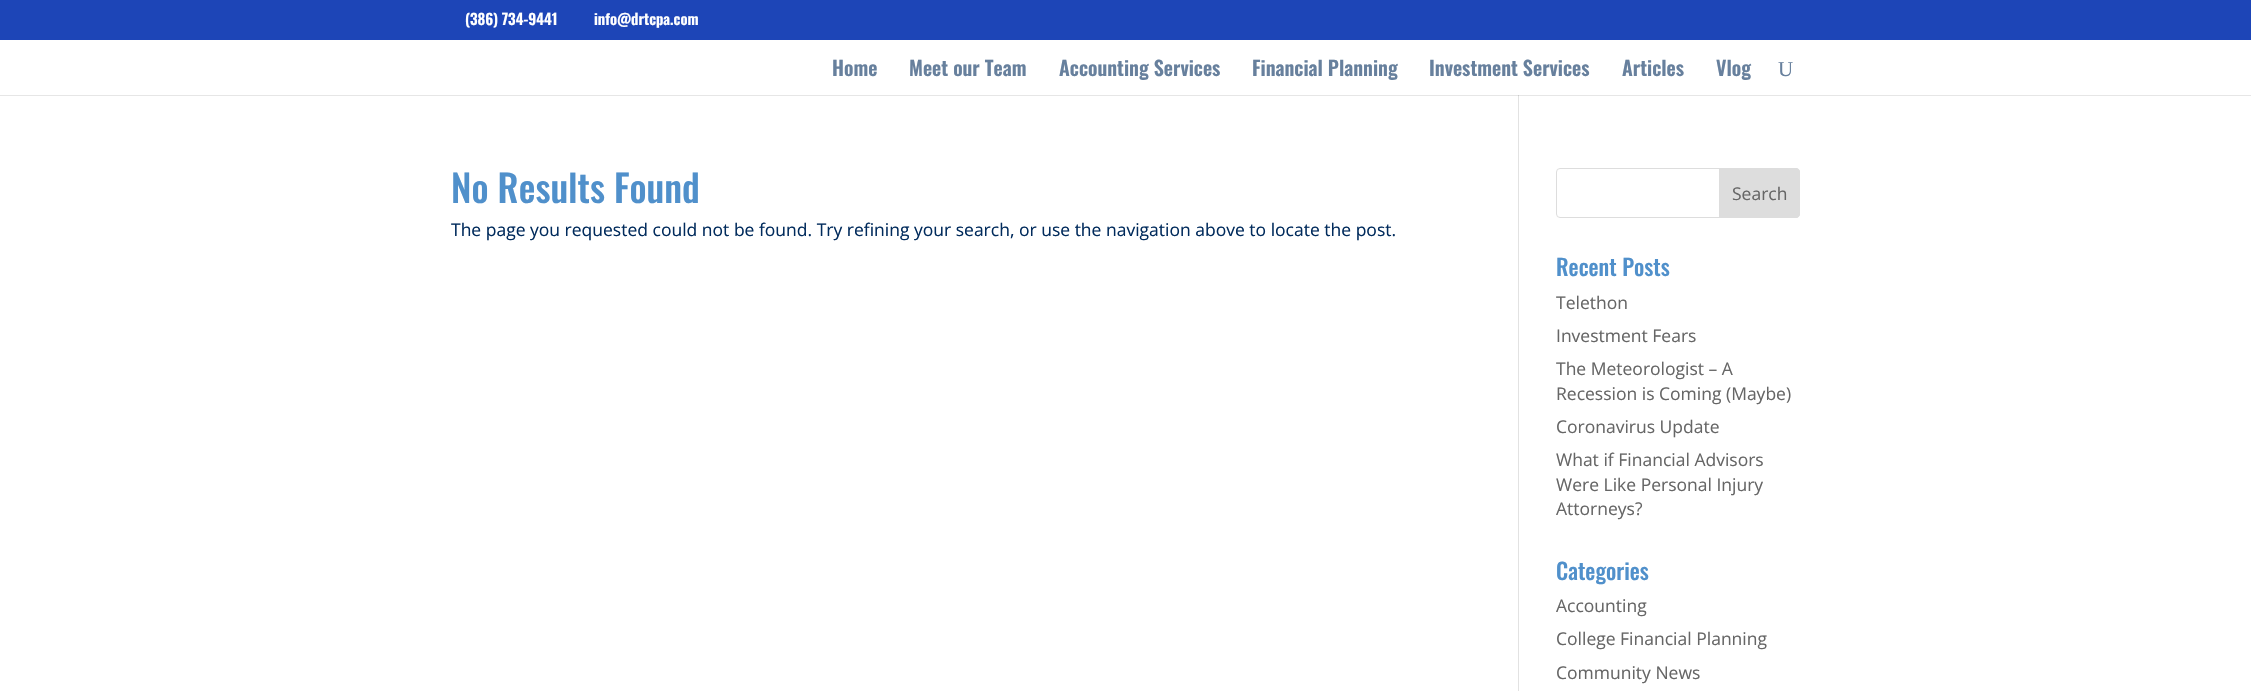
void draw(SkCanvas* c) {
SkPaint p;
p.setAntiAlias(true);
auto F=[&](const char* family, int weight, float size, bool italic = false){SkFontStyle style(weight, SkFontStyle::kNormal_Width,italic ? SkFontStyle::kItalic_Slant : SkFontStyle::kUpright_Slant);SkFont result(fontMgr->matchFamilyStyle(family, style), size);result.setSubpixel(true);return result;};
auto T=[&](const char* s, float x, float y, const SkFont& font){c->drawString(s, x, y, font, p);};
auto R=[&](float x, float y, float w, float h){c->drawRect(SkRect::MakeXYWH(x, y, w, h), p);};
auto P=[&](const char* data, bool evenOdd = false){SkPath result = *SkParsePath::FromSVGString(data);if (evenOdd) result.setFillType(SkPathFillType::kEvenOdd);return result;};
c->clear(0xffffffff);
p.setColor(0xffe6e6e6);
R(0,95,2251,1);
p.setColor(0xff1d45b7);
R(0,0,2251,40);
auto f1 = F("Oswald",600,15);
p.setColor(0xffffffff);
T("(386) 734-9441",465,25,f1);
T("info@drtcpa.com",594,25,f1);
auto f2 = F("Oswald",600,20);
p.setColor(0xff67809d);
T("Home",832,76,f2);
T("Meet our Team",909,76,f2);
T("Accounting Services",1059,76,f2);
T("Financial Planning",1252,76,f2);
T("Investment Services",1429,76,f2);
T("Articles",1622,76,f2);
T("Vlog",1716,76,f2);
auto f3 = F("Liberation Serif",400,21);
T("U",1778,76,f3);
p.setColor(0xffe2e2e2);
R(1518,95,1,596);
p.setColor(0xffcbcbcb);
R(1518,95,1,1);
auto f4 = F("Oswald",500,37.5);
p.setColor(0xff5090cb);
T("No Results Found",451,203,f4);
auto f5 = F("Open Sans",400,17.5);
p.setColor(0xff012b5c);
T("The page you requested could not be found. Try refining your search, or use the navigation above to locate the post.",451,236,f5);
p.setStroke(true);
p.setStrokeWidth(1);
p.setColor(0xffdddddd);
c->drawRoundRect(SkRect::MakeXYWH(1556.5,168.5,243,49),3.5,3.5,p);
p.setStroke(false);
c->drawPath(P("M1719.5 168.5h76.5c2 0 3.5 1.5 3.5 3.5v42c0 2-1.5 3.5-3.5 3.5h-76.5z"),p);
p.setStroke(true);
c->drawPath(P("M1719.5 168.5h76.5c2 0 3.5 1.5 3.5 3.5v42c0 2-1.5 3.5-3.5 3.5h-76.5z"),p);
p.setStroke(false);
p.setColor(0xff666666);
T("Search",1732,200,f5);
auto f6 = F("Oswald",500,22.5);
p.setColor(0xff5090cb);
T("Recent Posts",1556,276,f6);
p.setColor(0xff666666);
T("Telethon",1556,309,f5);
T("Investment Fears",1556,342,f5);
T("The Meteorologist – A",1556,375,f5);
T("Recession is Coming (Maybe)",1556,400,f5);
T("Coronavirus Update",1556,433,f5);
T("What if Financial Advisors",1556,466,f5);
T("Were Like Personal Injury",1556,491,f5);
T("Attorneys?",1556,515,f5);
p.setColor(0xff5090cb);
T("Categories",1556,580,f6);
p.setColor(0xff666666);
T("Accounting",1556,612,f5);
T("College Financial Planning",1556,645,f5);
T("Community News",1556,679,f5);
}
